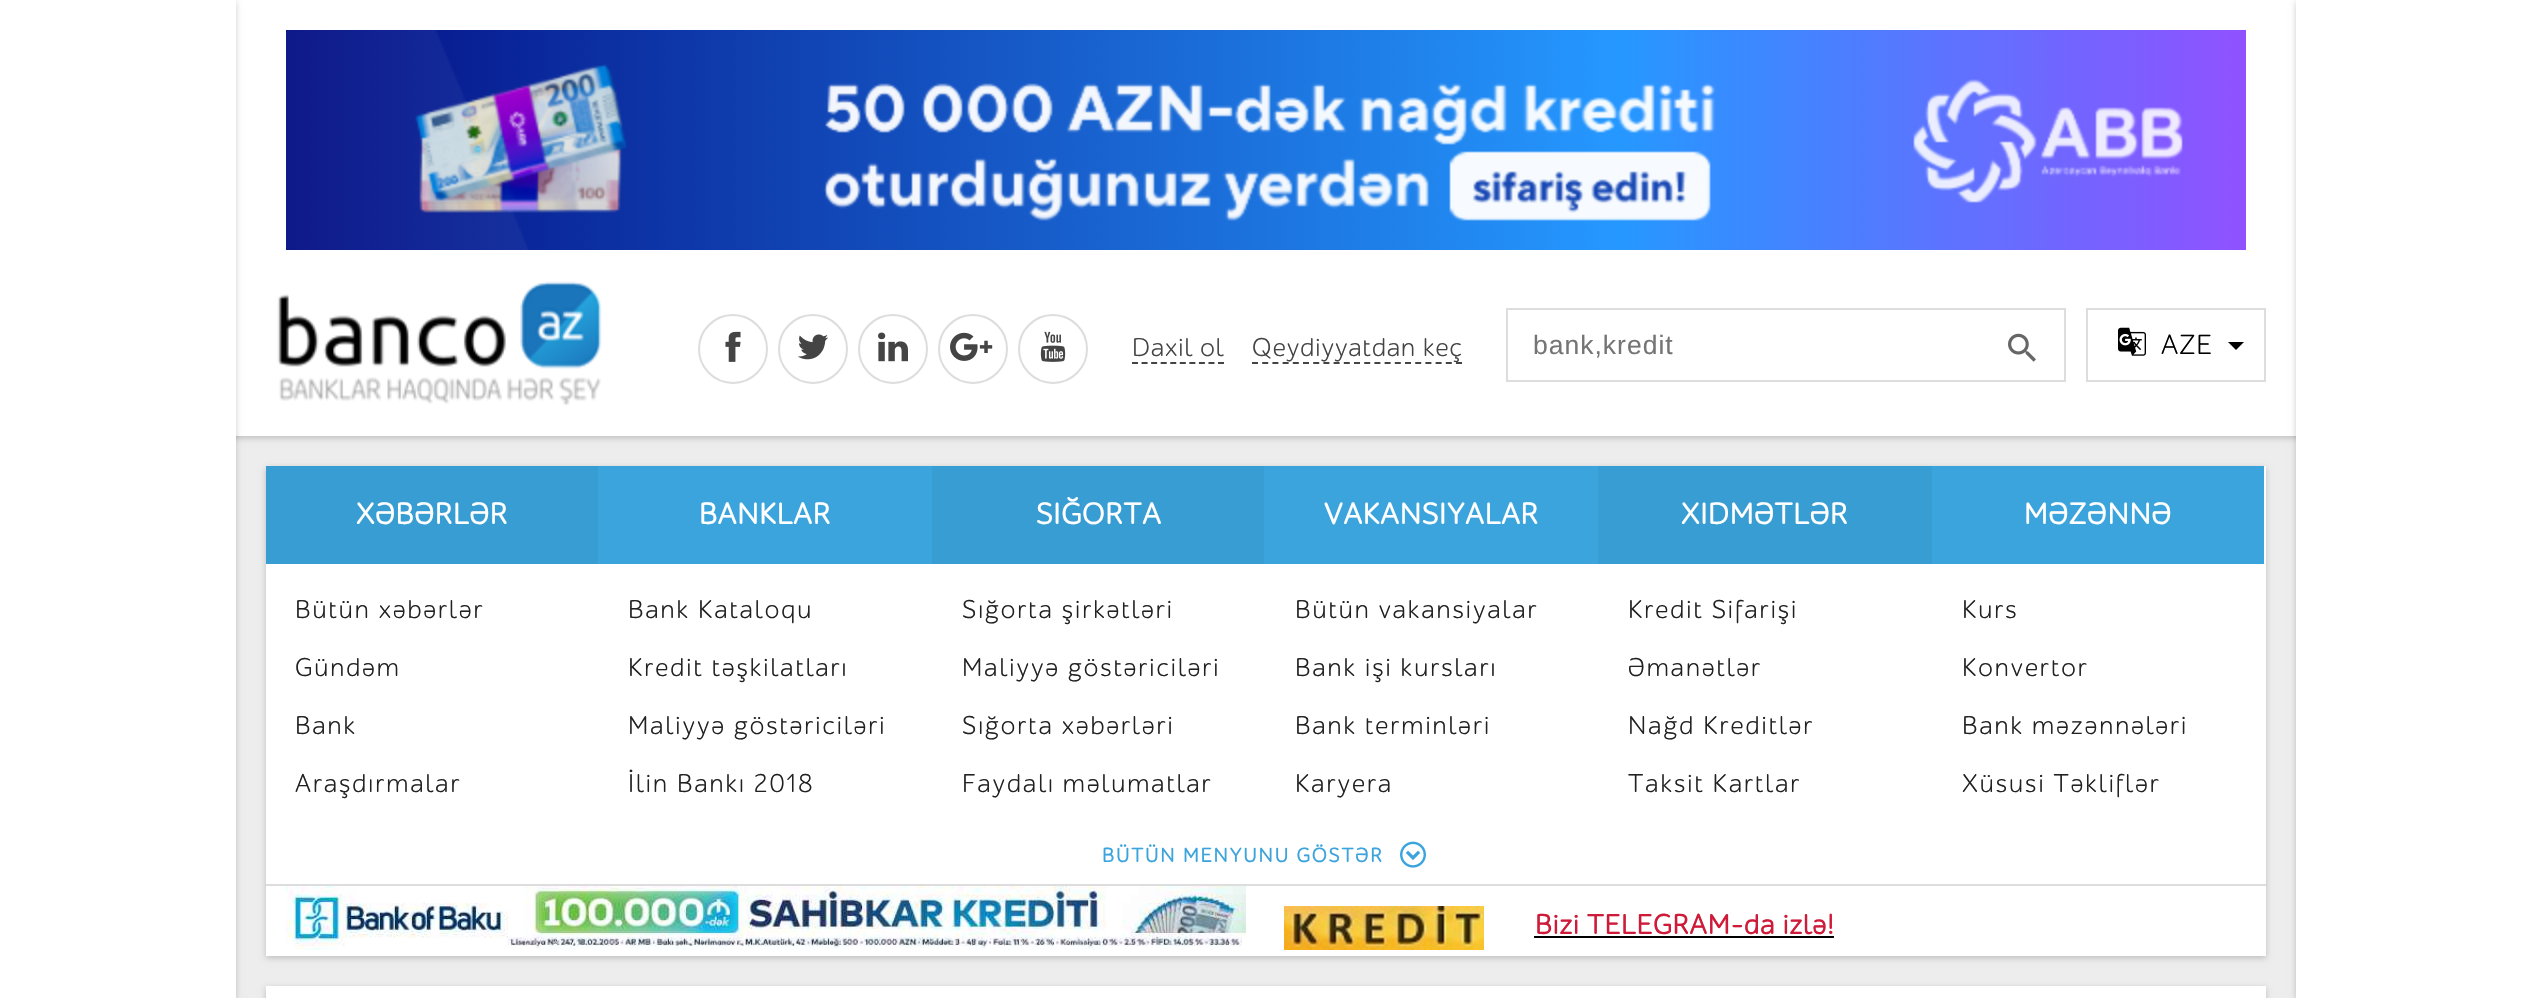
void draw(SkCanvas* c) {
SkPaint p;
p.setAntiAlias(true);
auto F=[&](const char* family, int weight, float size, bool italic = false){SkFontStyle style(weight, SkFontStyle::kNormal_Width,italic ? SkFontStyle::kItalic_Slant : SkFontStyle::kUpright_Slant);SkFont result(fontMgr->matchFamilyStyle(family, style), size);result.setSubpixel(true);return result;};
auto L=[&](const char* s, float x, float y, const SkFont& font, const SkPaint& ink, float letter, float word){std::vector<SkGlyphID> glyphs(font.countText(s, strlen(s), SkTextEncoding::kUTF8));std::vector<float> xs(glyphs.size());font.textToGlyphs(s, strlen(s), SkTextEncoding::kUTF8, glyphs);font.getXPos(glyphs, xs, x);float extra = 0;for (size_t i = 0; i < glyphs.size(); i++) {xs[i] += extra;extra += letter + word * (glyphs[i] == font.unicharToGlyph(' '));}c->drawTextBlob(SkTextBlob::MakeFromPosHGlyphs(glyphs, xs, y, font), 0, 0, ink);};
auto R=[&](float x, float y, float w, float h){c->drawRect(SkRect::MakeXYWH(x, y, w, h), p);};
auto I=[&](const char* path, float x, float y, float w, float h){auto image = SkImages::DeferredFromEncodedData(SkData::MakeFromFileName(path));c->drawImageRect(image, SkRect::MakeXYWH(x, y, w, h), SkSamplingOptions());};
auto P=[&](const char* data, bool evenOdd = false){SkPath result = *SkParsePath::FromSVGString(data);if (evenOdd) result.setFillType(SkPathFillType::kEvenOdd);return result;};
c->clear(0xffededed);
p.setColor(0x33000000);
p.setMaskFilter(SkMaskFilter::MakeBlur(kNormal_SkBlurStyle, 3));
c->drawRect(SkRect::MakeXYWH(0,2,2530,436),p);
p.setMaskFilter(nullptr);
p.setColor(0xffffffff);
R(236,0,2060,436);
p.setColor(0x33000000);
p.setMaskFilter(SkMaskFilter::MakeBlur(kNormal_SkBlurStyle, 3));
c->drawRect(SkRect::MakeXYWH(-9,2,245,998),p);
p.setMaskFilter(nullptr);
p.setColor(0xffffffff);
R(0,0,236,998);
I("1.png",286,30,1960,220);
I("2.png",277,281,325,125);
p.setStroke(true);
p.setStrokeWidth(2);
p.setColor(0xffdddddd);
c->drawCircle(733,349,34,p);
I("3.png",725,331,16,31);
c->drawCircle(813,349,34,p);
I("4.png",798,334,30,26);
c->drawCircle(893,349,34,p);
I("5.png",878,332,30,30);
c->drawCircle(973,349,34,p);
I("6.png",950,332,43,29);
c->drawCircle(1053,349,34,p);
I("7.png",1040,331,26,31);
auto f1 = F("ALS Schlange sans",400,26);
p.setStroke(false);
p.setColor(0xff444444);
L("Daxil ol",1132,356,f1,p,1,0);
p.setStroke(true);
p.setPathEffect(SkDashPathEffect::Make({{6,3.56f}}, 0));
c->drawPath(P("M1132 363h92"),p);
p.setPathEffect(nullptr);
p.setPathEffect(SkDashPathEffect::Make({{6,4.2f}}, 0));
c->drawPath(P("M1252 363h210"),p);
p.setPathEffect(nullptr);
p.setStroke(false);
L("Qeydiyyatdan keç",1252,356,f1,p,1,0);
p.setStroke(true);
p.setColor(0xffdddddd);
c->drawRect(SkRect::MakeXYWH(1507,309,558,72),p);
auto f2 = F("Liberation Sans",400,26.5);
p.setStroke(false);
p.setColor(0xff757575);
L("bank,kredit",1533,354,f2,p,1,0);
I("8.png",2008,333,28,29);
p.setStroke(true);
p.setColor(0xffdddddd);
c->drawRect(SkRect::MakeXYWH(2087,309,178,72),p);
I("9.png",2118,327,28,29);
auto f3 = F("ALS Schlange sans",400,28);
p.setStroke(false);
p.setColor(0xff000000);
L("AZE",2161,354,f3,p,1,0);
c->drawPath(P("M2228 342h16l-8 8z"),p);
p.setColor(0x33000000);
p.setMaskFilter(SkMaskFilter::MakeBlur(kNormal_SkBlurStyle, 3));
c->drawRect(SkRect::MakeXYWH(2296,2,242,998),p);
p.setMaskFilter(nullptr);
p.setColor(0xffffffff);
R(2296,0,233,998);
p.setColor(0x33000000);
p.setMaskFilter(SkMaskFilter::MakeBlur(kNormal_SkBlurStyle, 3));
c->drawRect(SkRect::MakeXYWH(266,468,2000,490),p);
p.setMaskFilter(nullptr);
p.setColor(0xffffffff);
R(266,466,2000,490);
p.setColor(0xffdddddd);
R(266,884,2000,2);
p.setColor(0xff389dd2);
R(266,466,332,98);
auto f4 = F("ALS Schlange sans",700,30);
p.setColor(0xffffffff);
L("XƏBƏRLƏR",356,524,f4,p,1,0);
p.setColor(0xff222222);
L("Bütün xəbərlər",295,618,f1,p,2,0);
L("Gündəm",295,676,f1,p,2,0);
L("Bank",295,734,f1,p,2,0);
L("Araşdırmalar",295,792,f1,p,2,0);
p.setColor(0xff3ca4dd);
R(598,466,334,98);
p.setColor(0xffffffff);
L("BANKLAR",699,524,f4,p,1,0);
p.setColor(0xff222222);
L("Bank Kataloqu",628,618,f1,p,2,0);
L("Kredit təşkilatları",628,676,f1,p,2,0);
L("Maliyyə göstəriciləri",628,734,f1,p,2,0);
L("İlin Bankı 2018",628,792,f1,p,2,0);
p.setColor(0xff389dd2);
R(932,466,332,98);
p.setColor(0xffffffff);
L("SIĞORTA",1036,524,f4,p,1,0);
p.setColor(0xff222222);
L("Sığorta şirkətləri",962,618,f1,p,2,0);
L("Maliyyə göstəriciləri",962,676,f1,p,2,0);
L("Sığorta xəbərləri",962,734,f1,p,2,0);
L("Faydalı məlumatlar",962,792,f1,p,2,0);
p.setColor(0xff3ca4dd);
R(1264,466,334,98);
p.setColor(0xffffffff);
L("VAKANSIYALAR",1324,524,f4,p,1,0);
p.setColor(0xff222222);
L("Bütün vakansiyalar",1295,618,f1,p,2,0);
L("Bank işi kursları",1295,676,f1,p,2,0);
L("Bank terminləri",1295,734,f1,p,2,0);
L("Karyera",1295,792,f1,p,2,0);
p.setColor(0xff389dd2);
R(1598,466,334,98);
p.setColor(0xffffffff);
L("XIDMƏTLƏR",1681,524,f4,p,1,0);
p.setColor(0xff222222);
L("Kredit Sifarişi",1628,618,f1,p,2,0);
L("Əmanətlər",1628,676,f1,p,2,0);
L("Nağd Kreditlər",1628,734,f1,p,2,0);
L("Taksit Kartlar",1628,792,f1,p,2,0);
p.setColor(0xff3ca4dd);
R(1932,466,332,98);
p.setColor(0xffffffff);
L("MƏZƏNNƏ",2024,524,f4,p,1,0);
p.setColor(0xff222222);
L("Kurs",1962,618,f1,p,2,0);
L("Konvertor",1962,676,f1,p,2,0);
L("Bank məzənnələri",1962,734,f1,p,2,0);
L("Xüsusi Təkliflər",1962,792,f1,p,2,0);
auto f5 = F("ALS Schlange sans",700,20);
p.setColor(0xff3ca4dd);
L("BÜTÜN MENYUNU GÖSTƏR",1102,862,f5,p,2,0);
I("10.png",1400,841,26,27);
I("11.png",286,886,960,64);
I("12.png",1284,906,200,44);
auto f6 = F("ALS Schlange sans",700,28);
p.setColor(0xffce1b39);
L("Bizi TELEGRAM-da izlə!",1535,934,f6,p,1,0);
p.setColor(0xff000000);
R(1534,936,300,2);
p.setColor(0x33000000);
p.setMaskFilter(SkMaskFilter::MakeBlur(kNormal_SkBlurStyle, 3));
c->drawRect(SkRect::MakeXYWH(266,988,2000,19),p);
p.setMaskFilter(nullptr);
p.setColor(0xffffffff);
R(266,986,2000,12);
}
